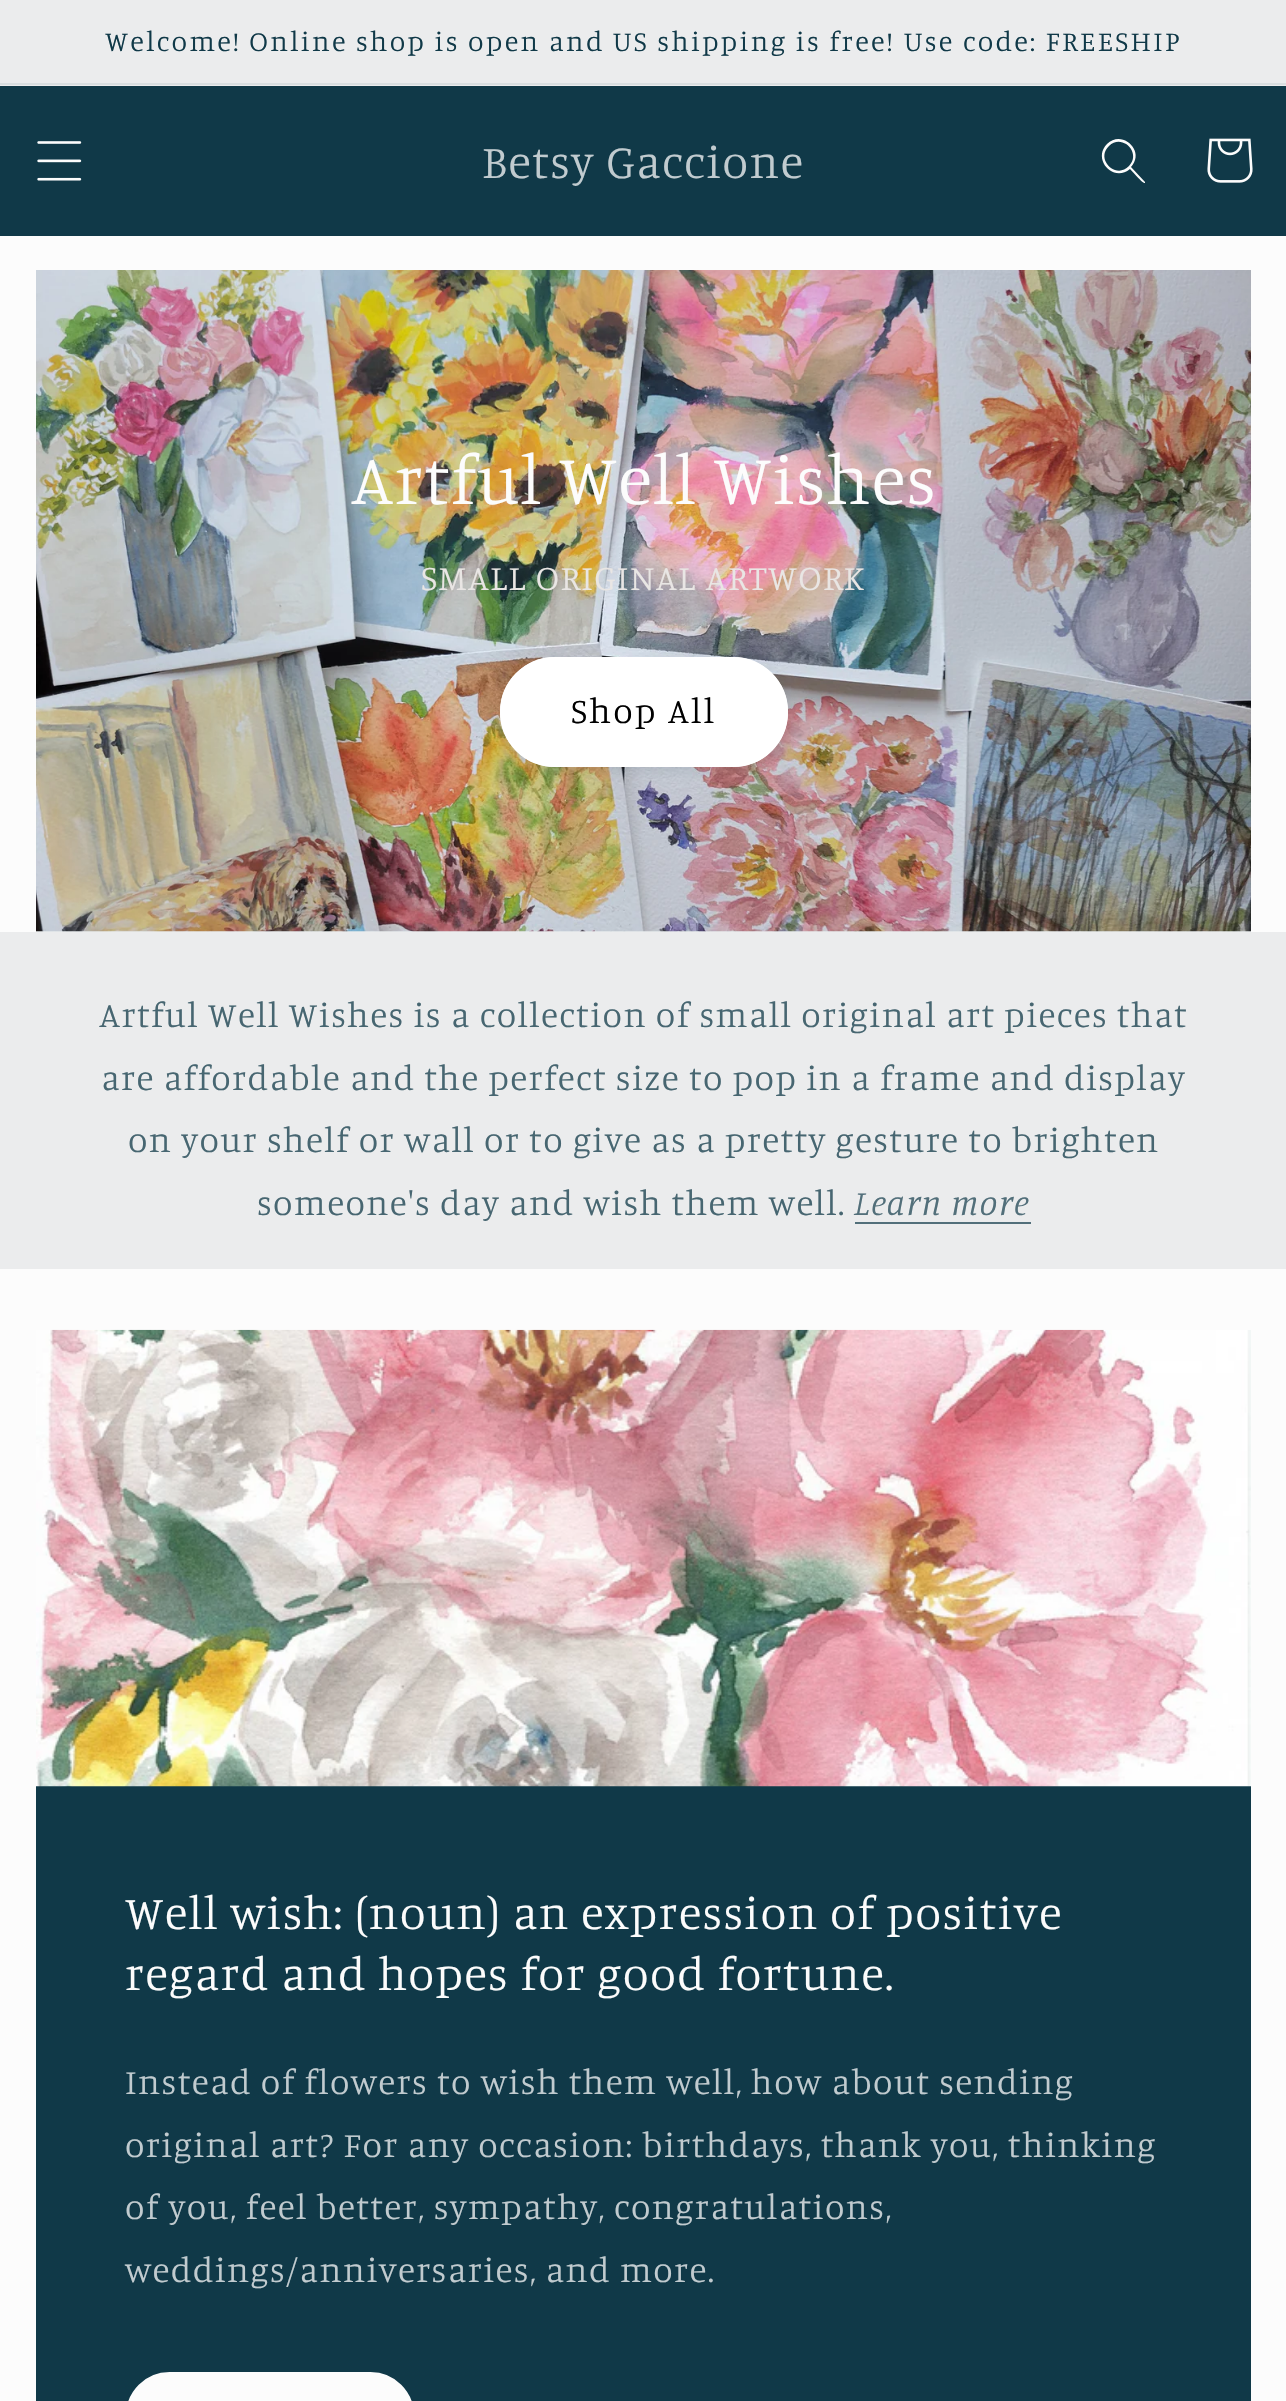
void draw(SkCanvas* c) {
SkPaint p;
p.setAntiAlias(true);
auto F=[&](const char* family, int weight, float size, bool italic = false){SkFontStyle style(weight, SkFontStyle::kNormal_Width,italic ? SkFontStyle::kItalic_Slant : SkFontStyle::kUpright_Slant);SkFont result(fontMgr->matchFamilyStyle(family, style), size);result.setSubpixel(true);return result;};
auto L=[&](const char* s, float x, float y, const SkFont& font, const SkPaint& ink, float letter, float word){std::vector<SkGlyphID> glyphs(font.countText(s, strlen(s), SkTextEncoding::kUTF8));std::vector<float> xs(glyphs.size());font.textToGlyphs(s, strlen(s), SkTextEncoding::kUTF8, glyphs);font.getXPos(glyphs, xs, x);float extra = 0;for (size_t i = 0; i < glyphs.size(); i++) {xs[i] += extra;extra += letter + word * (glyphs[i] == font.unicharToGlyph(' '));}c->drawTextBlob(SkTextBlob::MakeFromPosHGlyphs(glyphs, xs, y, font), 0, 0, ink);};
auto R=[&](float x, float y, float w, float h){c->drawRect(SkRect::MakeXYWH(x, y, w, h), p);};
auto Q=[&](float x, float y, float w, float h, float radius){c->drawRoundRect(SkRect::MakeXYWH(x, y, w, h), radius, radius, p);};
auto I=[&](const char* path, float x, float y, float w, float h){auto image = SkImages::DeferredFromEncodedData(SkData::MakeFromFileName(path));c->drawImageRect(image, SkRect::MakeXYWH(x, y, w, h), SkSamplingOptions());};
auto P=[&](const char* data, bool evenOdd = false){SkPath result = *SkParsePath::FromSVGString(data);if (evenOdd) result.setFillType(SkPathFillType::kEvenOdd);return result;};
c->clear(0xfffcfcfc);
p.setColor(0xffebeced);
R(0,0,1286,86);
p.setColor(0xffd9dee0);
R(0,83,1286,2);
auto f1 = F("Manuale",300,28.35);
p.setColor(0xff103948);
L("Welcome! Online shop is open and US shipping is free!",105,51,f1,p,2.35,0);
L("Use code: FREESHIP",904,51,f1,p,2.35,0);
R(0,86,1286,150);
I("1.png",37,141,45,40);
auto f2 = F("Manuale",300,47.25);
p.setColor(0xffc1cbcf);
L("Betsy Gaccione",482,178,f2,p,1.42,0);
p.setColor(0xfffcfcfc);
c->drawPath(P("M1129 166c-13 14-34-7-20-20c13-13 33 7 20 20zm1 3c-17 14-38-10-23-25c15-15 39 7 24 23l14 15v1c-2 1-13-12-15-14z",true),p);
I("2.png",1207,138,46,45);
p.setColor(0xffe7ebec);
R(36,931,1215,1);
I("3.png",36,270,1215,662);
auto f3 = F("Manuale",300,71);
p.setColor(0xfffcfcfc);
L("Artful Well Wishes",351,504,f3,p,1.42,0);
auto f4 = F("Manuale",300,35.45);
p.setColor(0xffe9e6e4);
L("SMALL ORIGINAL ARTWORK",421,590,f4,p,1.42,0);
p.setColor(0x1a103948);
p.setMaskFilter(SkMaskFilter::MakeBlur(kNormal_SkBlurStyle, 5.5));
c->drawRoundRect(SkRect::MakeXYWH(504,662,288,110),55,55,p);
p.setMaskFilter(nullptr);
p.setColor(0xffffffff);
Q(500,657,288,110,55);
p.setStroke(true);
p.setStrokeWidth(2);
c->drawRoundRect(SkRect::MakeXYWH(501,658,286,108),54,54,p);
p.setStroke(false);
p.setColor(0xff000000);
L("Shop All",571,723,f4,p,2.35,0);
p.setColor(0xffebeced);
R(0,932,1286,337);
p.setColor(0xff476671);
L("Artful Well Wishes is a collection of small original art pieces that",99,1027,f4,p,1.42,0);
L("are affordable and the perfect size to pop in a frame and display",101,1090,f4,p,1.42,0);
L("on your shelf or wall or to give as a pretty gesture to brighten",128,1152,f4,p,1.42,0);
L("someone's day and wish them well.",257,1215,f4,p,1.42,0);
auto f5 = F("Manuale",300,35.45,true);
p.setColor(0xff526f7a);
L("Learn more",854,1215,f5,p,1.42,0);
R(855,1222,176,2);
p.setColor(0xff103948);
R(36,1786,1215,615);
I("4.png",36,1329,1215,458);
p.setColor(0xfffcfcfc);
L("Well wish: (noun) an expression of positive",125,1929,f2,p,1.42,0);
L("regard and hopes for good fortune.",125,1990,f2,p,1.42,0);
p.setColor(0xffc1cbcf);
L("Instead of flowers to wish them well, how about sending",125,2094,f4,p,1.42,0);
L("original art? For any occasion: birthdays, thank you, thinking",125,2157,f4,p,1.42,0);
L("of you, feel better, sympathy, congratulations,",125,2219,f4,p,1.42,0);
L("weddings/anniversaries, and more.",125,2282,f4,p,1.42,0);
p.setColor(0xfffcfcfc);
c->drawRoundRect(SkRect::MakeXYWH(127,2373,286,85),55,55,p);
p.setStroke(true);
c->drawRoundRect(SkRect::MakeXYWH(127,2373,286,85),55,55,p);
}
